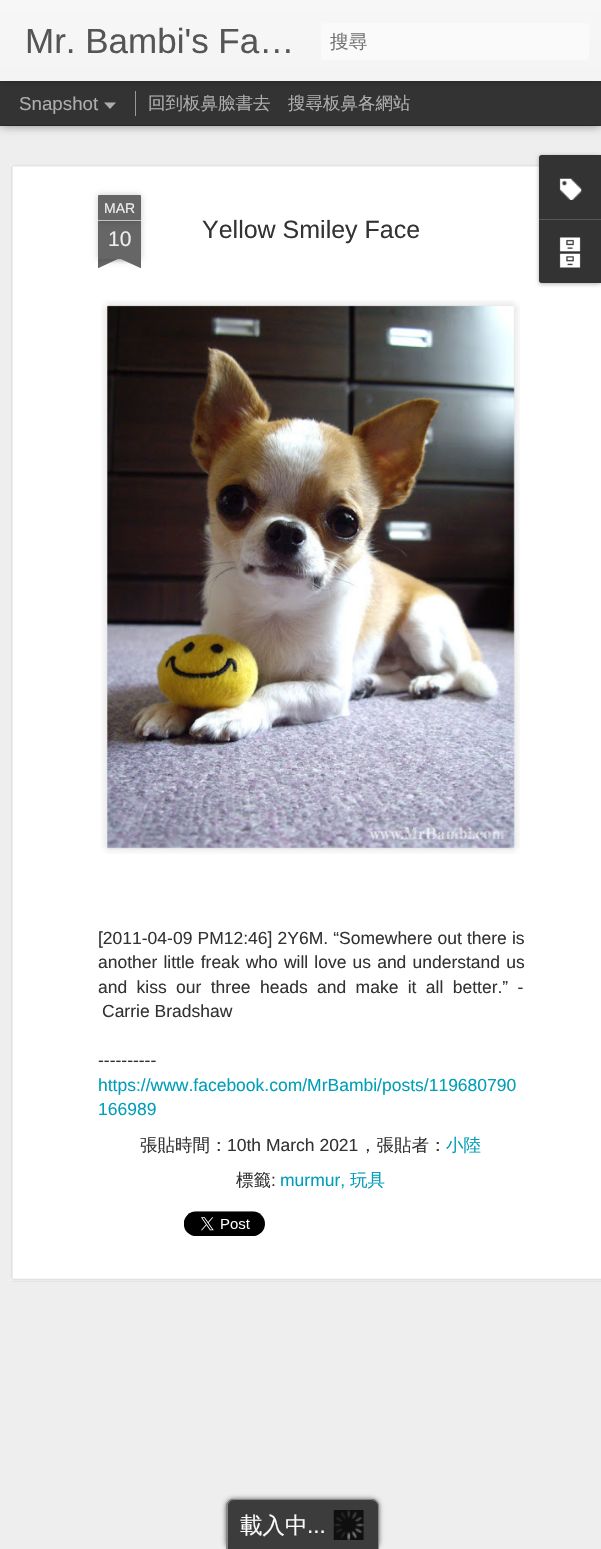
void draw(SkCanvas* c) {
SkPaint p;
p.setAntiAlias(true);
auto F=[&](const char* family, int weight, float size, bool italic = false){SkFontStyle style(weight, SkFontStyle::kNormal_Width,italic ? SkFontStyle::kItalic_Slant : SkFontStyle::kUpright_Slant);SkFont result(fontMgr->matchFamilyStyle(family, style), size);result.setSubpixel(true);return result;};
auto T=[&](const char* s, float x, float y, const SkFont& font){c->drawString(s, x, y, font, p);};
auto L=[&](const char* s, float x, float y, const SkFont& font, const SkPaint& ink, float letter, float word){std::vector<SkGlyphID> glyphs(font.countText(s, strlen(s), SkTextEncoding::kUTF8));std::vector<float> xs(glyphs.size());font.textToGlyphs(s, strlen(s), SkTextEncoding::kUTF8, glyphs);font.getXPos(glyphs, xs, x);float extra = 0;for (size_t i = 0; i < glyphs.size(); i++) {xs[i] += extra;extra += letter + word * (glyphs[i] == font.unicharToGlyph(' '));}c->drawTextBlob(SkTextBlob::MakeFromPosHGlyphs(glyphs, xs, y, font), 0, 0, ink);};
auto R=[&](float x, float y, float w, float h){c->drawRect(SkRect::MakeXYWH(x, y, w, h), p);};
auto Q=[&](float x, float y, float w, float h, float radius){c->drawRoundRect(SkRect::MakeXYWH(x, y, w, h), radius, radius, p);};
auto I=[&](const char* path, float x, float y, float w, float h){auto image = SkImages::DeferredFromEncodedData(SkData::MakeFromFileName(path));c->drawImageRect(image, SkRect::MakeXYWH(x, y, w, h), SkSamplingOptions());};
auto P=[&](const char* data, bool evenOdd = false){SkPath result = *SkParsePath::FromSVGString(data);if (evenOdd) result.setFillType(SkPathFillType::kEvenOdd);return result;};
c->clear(0xff333333);
p.setColor(0xffeeeeee);
R(0,126,601,1423);
p.setColor(0x80000000);
p.setMaskFilter(SkMaskFilter::MakeBlur(kNormal_SkBlurStyle, 5));
c->drawRect(SkRect::MakeXYWH(0,81,601,44),p);
p.setMaskFilter(nullptr);
p.setColor(0xff333333);
R(0,81,601,44);
p.setColor(0x4d000000);
p.setMaskFilter(SkMaskFilter::MakeBlur(kNormal_SkBlurStyle, 3));
c->drawRect(SkRect::MakeXYWH(0,0,601,81),p);
p.setMaskFilter(nullptr);
{
const SkColor colors[] = {0xfff7f7f7,0xfff4f4f4};
const float stops[] = {0,1};
const SkPoint ends[] = {{0,0}, {0,81}};
p.setShader(SkGradientShader::MakeLinear(ends, colors, stops, 2, SkTileMode::kClamp));
p.setAlpha(255);
}
R(0,0,601,81);
auto f1 = F("Liberation Sans",400,35);
p.setShader(nullptr);
p.setColor(0xff555555);
T("Mr. Bambi's Fa…",25,53,f1);
p.setColor(0xfffafafa);
Q(321,23,268,37,4);
auto f2 = F("WenQuanYi Zen Hei",500,18.75);
p.setColor(0xff757575);
T("搜尋",330,48,f2);
auto f3 = F("Liberation Sans",400,18.75);
p.setColor(0xffadadad);
T("Snapshot",19,110,f3);
c->drawPath(P("M104 102.5h12l-6 6.5z"),p);
p.setColor(0xff999999);
R(135,91,1,25);
auto f4 = F("WenQuanYi Zen Hei",500,17.5);
p.setColor(0xffadadad);
T("回到板鼻臉書去",148,109,f4);
T("搜尋板鼻各網站",288,109,f4);
p.setColor(0xffffffff);
R(10,164,591,1117);
I("1.png",10,164,591,1118);
p.setColor(0x33000000);
p.setMaskFilter(SkMaskFilter::MakeBlur(kNormal_SkBlurStyle, 3));
c->drawRect(SkRect::MakeXYWH(98,221,43,38),p);
p.setMaskFilter(nullptr);
p.setColor(0xff666666);
R(98,221,43,38);
p.setColor(0x33000000);
p.setMaskFilter(SkMaskFilter::MakeBlur(kNormal_SkBlurStyle, 3));
c->drawRoundRect(SkRect::MakeXYWH(98,195,43,26),1,1,p);
p.setMaskFilter(nullptr);
p.setColor(0xff666666);
c->drawPath(P("M99 195h41c.5 0 1 .5 1 1v25h-43v-25c0-.5 .5-1 1-1z"),p);
p.setColor(0xffc2c2c2);
R(98,220,43,1);
auto f5 = F("Liberation Sans",400,14);
p.setColor(0xffeeeeee);
T("MAR",104,213,f5);
auto f6 = F("Liberation Sans",400,21);
T("10",108,246,f6);
c->save();
c->clipRect(SkRect::MakeXYWH(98,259,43,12));
p.setColor(0x33000000);
p.setMaskFilter(SkMaskFilter::MakeBlur(kNormal_SkBlurStyle, 3));
c->drawRect(SkRect::MakeXYWH(86,246,63,13),p);
p.setMaskFilter(nullptr);
c->restore();
c->save();
c->clipRect(SkRect::MakeXYWH(98,259,43,12));
p.setColor(0xff666666);
c->drawPath(P("M87 260l56-26l5 11l-56 26z"),p);
c->restore();
c->save();
c->clipRect(SkRect::MakeXYWH(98,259,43,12));
p.setColor(0x33000000);
p.setMaskFilter(SkMaskFilter::MakeBlur(kNormal_SkBlurStyle, 3));
c->drawRect(SkRect::MakeXYWH(90,246,63,13),p);
p.setMaskFilter(nullptr);
c->restore();
c->save();
c->clipRect(SkRect::MakeXYWH(98,259,43,12));
p.setColor(0xff666666);
c->drawPath(P("M96 234l56 26l-5 11l-57-26z"),p);
c->restore();
auto f7 = F("Liberation Sans",400,25);
p.setColor(0xff333333);
T("Yellow Smiley Face",202,238,f7);
I("2.png",101,300,419,554);
I("3.png",107,305,408,543);
auto f8 = F("Liberation Sans",400,17.5);
L("[2011-04-09 PM12:46] 2Y6M. “Somewhere out there is",98,944,f8,p,0,.25);
L("another little freak who will love us and understand us",98,968,f8,p,0,1.25);
L("and kiss our three heads and make it all better.” -",98,993,f8,p,0,4.5);
T("Carrie Bradshaw",102,1017,f8);
T("----------",98,1066,f8);
p.setColor(0xff009eb8);
T("https://www.facebook.com/MrBambi/posts/119680790",98,1091,f8);
T("166989",98,1115,f8);
p.setColor(0xff333333);
T("張貼時間：",140,1151,f4);
T("10th March 2021",227,1151,f8);
T("，張貼者：",359,1151,f4);
p.setColor(0xff009eb8);
T("小陸",446,1151,f4);
p.setColor(0xff333333);
T("標籤",236,1186,f4);
T(":",271,1186,f8);
p.setColor(0xff009eb8);
T("murmur,",280,1186,f8);
T("玩具",350,1186,f4);
I("4.png",184,1211,81,25);
p.setColor(0x4d000000);
p.setMaskFilter(SkMaskFilter::MakeBlur(kNormal_SkBlurStyle, 2));
c->drawRoundRect(SkRect::MakeXYWH(539,156,62,128),2.5,2.5,p);
p.setMaskFilter(nullptr);
p.setColor(0xff333333);
c->drawPath(P("M541.5 155h59.5v64h-62v-61.5c0-1.5 1-2.5 2.5-2.5z"),p);
I("5.png",559,178,23,22);
c->drawPath(P("M539 219h62v64h-59.5c-1.5 0-2.5-1-2.5-2.5z"),p);
p.setColor(0xff585858);
R(539,219,62,1);
I("6.png",559,237,22,31);
p.setColor(0xff626262);
p.setMaskFilter(SkMaskFilter::MakeBlur(kNormal_SkBlurStyle, 2.5));
c->drawRoundRect(SkRect::MakeXYWH(226,1499,153,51),8,8,p);
p.setMaskFilter(nullptr);
p.setColor(0xff3c3c3c);
c->drawPath(P("M234 1499h137c4.5 0 8 3.5 8 8v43h-153v-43c0-4.5 3.5-8 8-8z"),p);
p.setColor(0xff888888);
c->drawPath(P("M234 1499h137c4 0 8 3 8 7v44h-153v-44c0-4 4-7 8-7zm0 1h137c4 0 7 3 7 6v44h-150v-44c0-3 2-6 6-6z",true),p);
I("7.png",333,1510,31,30);
auto f9 = F("WenQuanYi Zen Hei",500,22.5);
p.setColor(0xfffbfbfb);
T("載入中",240,1533,f9);
auto f10 = F("Liberation Sans",400,22.5);
T("...",307,1533,f10);
}
